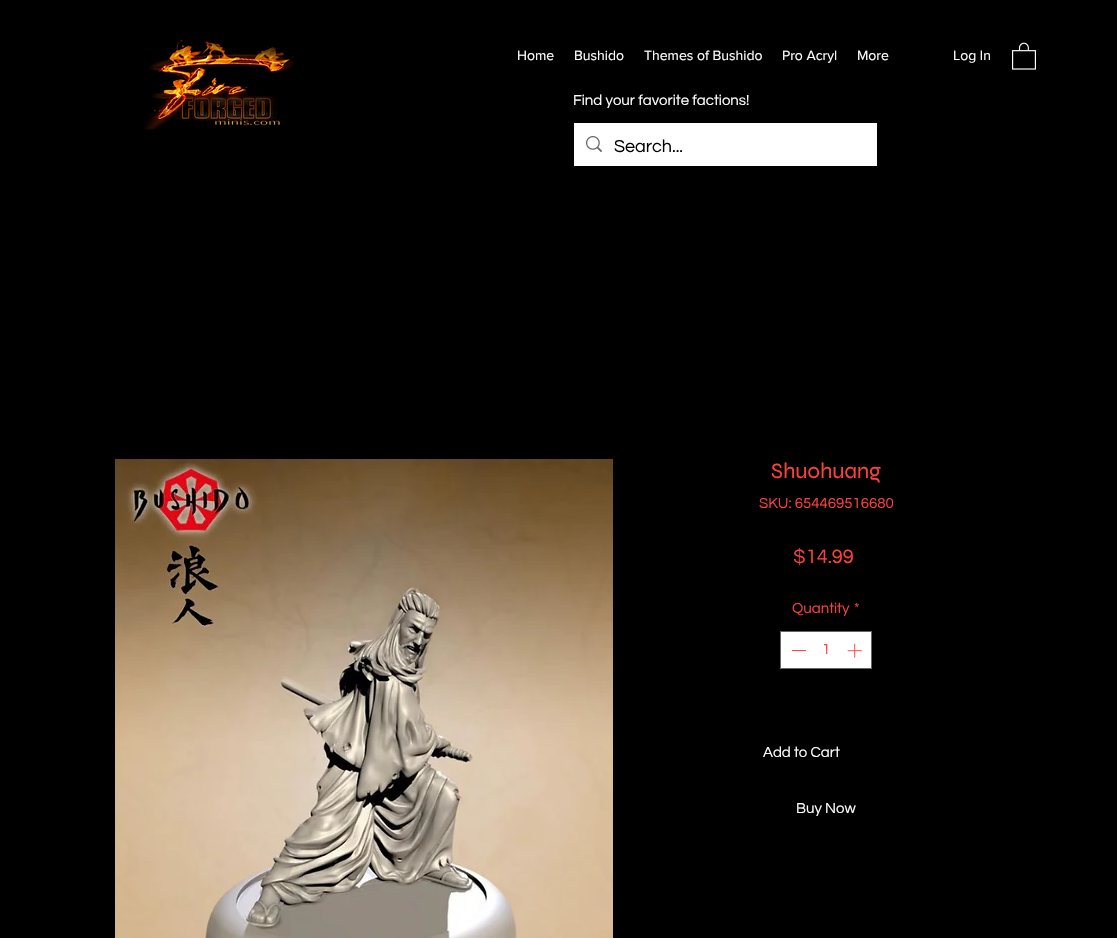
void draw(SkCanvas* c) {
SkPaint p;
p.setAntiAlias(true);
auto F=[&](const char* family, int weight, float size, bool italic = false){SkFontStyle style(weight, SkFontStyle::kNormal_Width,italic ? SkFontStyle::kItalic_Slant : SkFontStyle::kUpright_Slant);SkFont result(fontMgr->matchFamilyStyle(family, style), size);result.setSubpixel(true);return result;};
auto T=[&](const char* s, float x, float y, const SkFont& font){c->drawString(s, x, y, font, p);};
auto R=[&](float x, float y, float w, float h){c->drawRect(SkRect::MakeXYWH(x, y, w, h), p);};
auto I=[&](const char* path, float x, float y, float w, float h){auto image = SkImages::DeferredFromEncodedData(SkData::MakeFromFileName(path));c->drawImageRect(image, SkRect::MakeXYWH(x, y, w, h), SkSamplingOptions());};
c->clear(0xff000000);
I("1.png",144,39,151,91);
auto f1 = F("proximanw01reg",400,14);
p.setColor(0xffffffff);
T("Home",517,60,f1);
T("Bushido",574,60,f1);
T("Themes of Bushido",644,60,f1);
T("Pro Acryl",782,60,f1);
T("More",857,60,f1);
T("Log In",953,60,f1);
I("2.png",1012,42,24,28);
auto f2 = F("Questrial",400,15);
T("Find your favorite factions!",573,105,f2);
R(574,123,303,43);
I("3.png",586,136,16,16);
auto f3 = F("Questrial",400,18);
p.setColor(0xff000000);
T("Search...",614,152,f3);
I("4.png",115,459,498,479);
auto f4 = F("Syne",400,22);
p.setColor(0xffff4040);
T("Shuohuang",771,478,f4);
T("SKU: 654469516680",759,508,f2);
auto f5 = F("Questrial",400,20);
T("$14.99",793,563,f5);
T("Quantity",792,613,f2);
T("*",854,613,f2);
p.setColor(0xffffffff);
c->drawRect(SkRect::MakeXYWH(780.5,631.5,91,37),p);
p.setStroke(true);
p.setStrokeWidth(1);
p.setColor(0xff666666);
c->drawRect(SkRect::MakeXYWH(780.5,631.5,91,37),p);
p.setStroke(false);
p.setColor(0xffff4040);
R(792,650,14,1);
T("1",822,654,f2);
I("5.png",847,643,15,15);
p.setColor(0xffffffff);
T("Add to Cart",763,757,f2);
T("Buy Now",796,813,f2);
}
